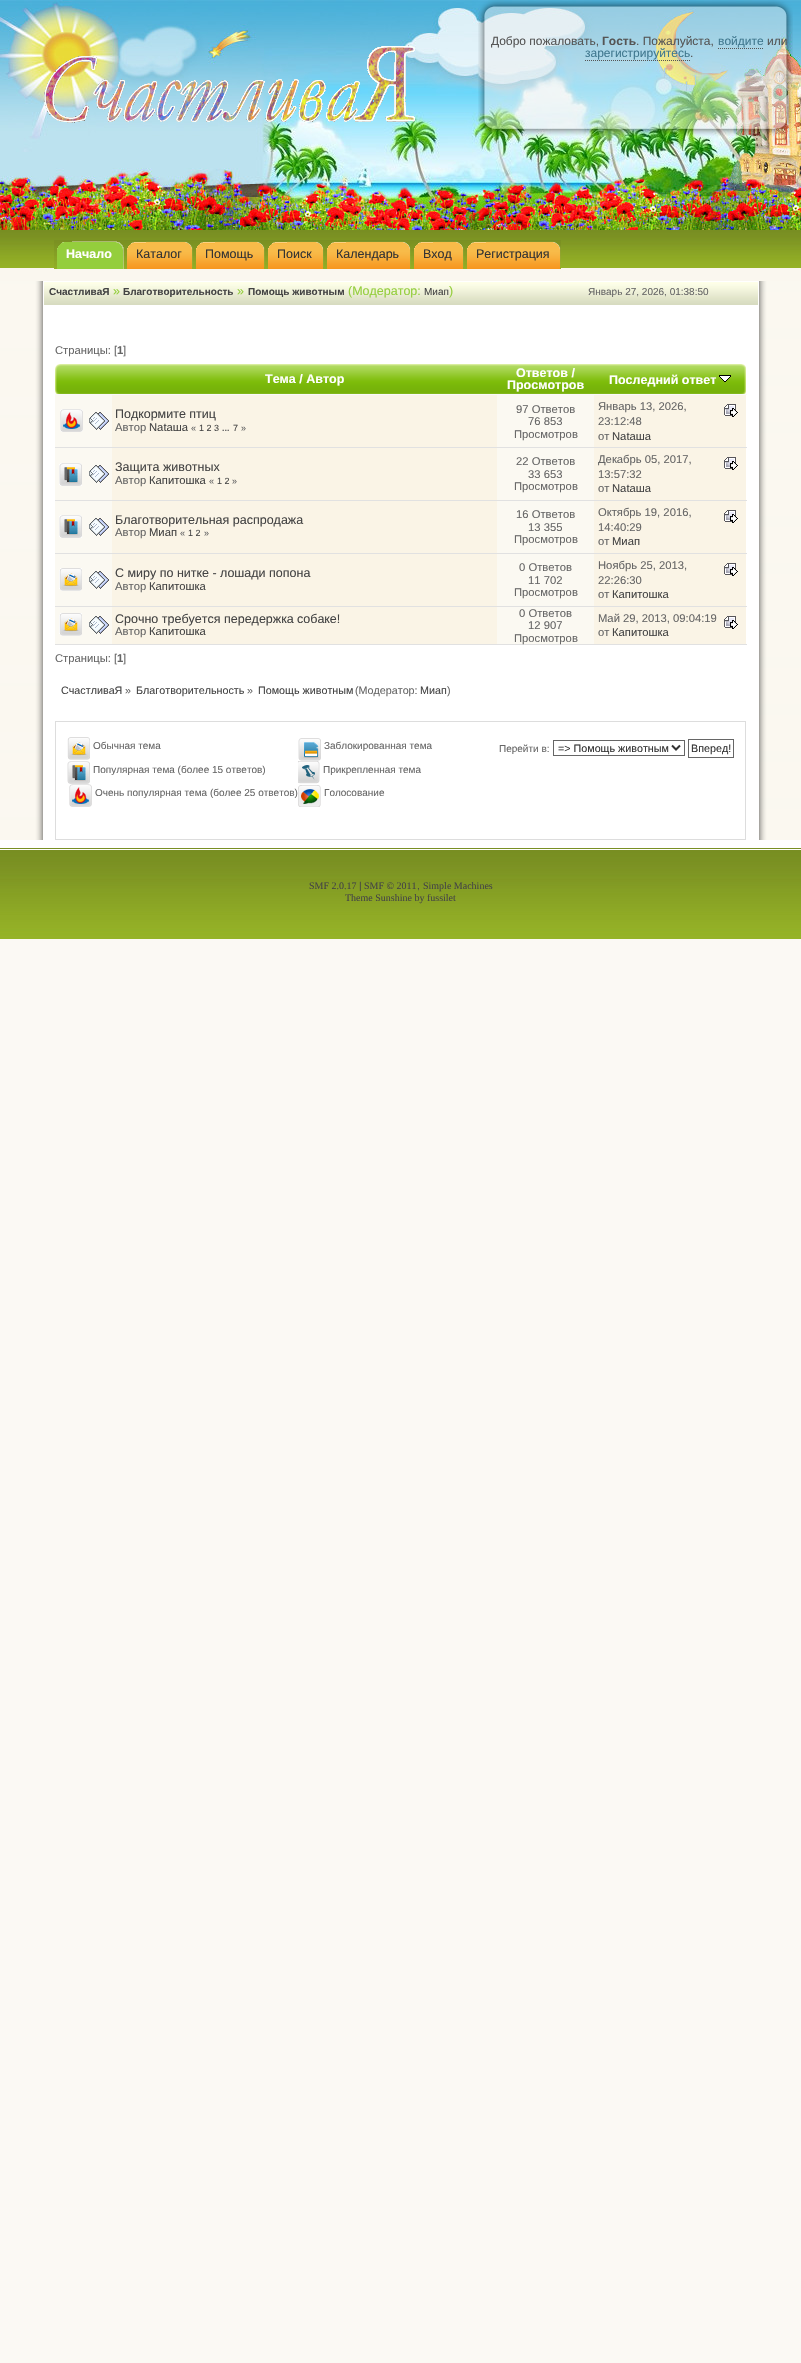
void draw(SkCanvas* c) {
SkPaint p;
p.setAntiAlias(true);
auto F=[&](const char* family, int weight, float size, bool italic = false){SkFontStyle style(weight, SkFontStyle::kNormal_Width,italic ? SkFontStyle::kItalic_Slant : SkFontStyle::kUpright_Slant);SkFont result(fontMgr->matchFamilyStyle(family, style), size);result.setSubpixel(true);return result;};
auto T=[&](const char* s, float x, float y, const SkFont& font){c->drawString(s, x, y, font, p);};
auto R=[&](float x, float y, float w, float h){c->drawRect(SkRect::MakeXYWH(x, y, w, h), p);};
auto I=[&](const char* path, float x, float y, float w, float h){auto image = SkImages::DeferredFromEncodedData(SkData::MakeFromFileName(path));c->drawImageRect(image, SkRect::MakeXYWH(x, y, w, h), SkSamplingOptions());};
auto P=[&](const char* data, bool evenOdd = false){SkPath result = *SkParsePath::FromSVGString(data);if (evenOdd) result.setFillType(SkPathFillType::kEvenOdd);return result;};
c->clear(0xfffbf9f4);
I("1.png",0,268,801,13);
I("2.png",0,0,801,230);
I("3.png",44,45,371,78);
I("4.png",478,0,315,136);
auto f1 = F("Liberation Sans",400,12);
p.setColor(0xff555555);
T("Добро пожаловать,",491,45,f1);
auto f2 = F("Liberation Sans",700,12);
T("Гость",602,45,f2);
T(". Пожалуйста,",636,45,f1);
p.setColor(0xff40788f);
T("войдите",718,45,f1);
p.setStroke(true);
p.setStrokeWidth(1);
p.setColor(0xff555555);
p.setPathEffect(SkDashPathEffect::Make({{1,1}}, 0));
c->drawPath(P("M718 48.5h45"),p);
p.setPathEffect(nullptr);
p.setStroke(false);
T("или",767,45,f1);
p.setColor(0xff40788f);
T("зарегистрируйтесь",585,57,f1);
p.setStroke(true);
p.setColor(0xff555555);
p.setPathEffect(SkDashPathEffect::Make({{1,1}}, 0));
c->drawPath(P("M585 60.5h105"),p);
p.setPathEffect(nullptr);
p.setStroke(false);
T(".",690,57,f1);
I("5.png",0,230,801,38);
I("6.png",54,240,70,29);
I("7.png",54,241,18,28);
auto f3 = F("Liberation Sans",700,12.5);
p.setColor(0xffffffff);
T("Начало",66,258,f3);
I("8.png",124,240,69,29);
I("9.png",124,241,22,28);
auto f4 = F("Liberation Sans",400,12.5);
p.setColor(0xff333333);
T("Каталог",136,258,f4);
I("10.png",193,240,72,29);
I("9.png",193,241,22,28);
T("Помощь",205,258,f4);
I("11.png",265,240,59,29);
I("9.png",265,241,22,28);
T("Поиск",277,258,f4);
I("12.png",324,240,87,29);
I("9.png",324,241,22,28);
T("Календарь",336,258,f4);
I("13.png",411,240,53,29);
I("9.png",411,241,22,28);
T("Вход",423,258,f4);
I("14.png",464,240,97,29);
I("9.png",464,241,22,28);
T("Регистрация",476,258,f4);
p.setColor(0xffffffff);
R(43,281,716,559);
I("15.png",759,281,42,559);
I("16.png",0,281,43,559);
I("17.png",44,282,714,23);
auto f5 = F("Liberation Sans",700,10);
p.setColor(0xff444444);
T("СчастливаЯ",49,295,f5);
p.setColor(0xff94ce3c);
T("»",113,295,f4);
p.setColor(0xff444444);
T("Благотворительность",123,295,f5);
p.setColor(0xff94ce3c);
T("»",237,295,f4);
p.setColor(0xff444444);
T("Помощь животным",248,295,f5);
p.setColor(0xff94ce3c);
T("(Модератор:",348,295,f4);
auto f6 = F("Liberation Sans",400,10);
p.setColor(0xff444444);
T("Миап",424,295,f6);
p.setColor(0xff94ce3c);
T(")",449,295,f4);
p.setColor(0xff666666);
T("Январь 27, 2026, 01:38:50",588,295,f6);
auto f7 = F("Liberation Sans",400,11.25);
T("Страницы: [",55,354,f7);
auto f8 = F("Liberation Sans",700,11.25);
T("1",117,354,f8);
T("]",123,354,f7);
I("18.png",55,364,57,30);
I("19.png",112,364,385,30);
p.setColor(0xffffffff);
T("Тема / Автор",265,383,f3);
I("20.png",497,364,97,30);
T("Ответов /",516,377,f3);
T("Просмотров",507,389,f3);
I("21.png",594,364,152,30);
T("Последний ответ",609,384,f3);
I("22.png",719,375,12,7);
p.setColor(0xfffbf9f2);
R(55,395,57,52);
I("23.png",60,409,23,23);
p.setColor(0xfffaf4e6);
R(112,395,385,52);
p.setColor(0xff444444);
T("Подкормите птиц",115,418,f4);
p.setColor(0xff666666);
T("Автор",115,431,f7);
p.setColor(0xff444444);
T("Nataшa",149,431,f7);
auto f9 = F("Liberation Sans",400,9);
p.setColor(0xff666666);
T("«",191,431,f9);
p.setColor(0xff444444);
T("1 2 3",199,431,f9);
auto f10 = F("Liberation Sans",700,9);
p.setColor(0xff666666);
T("...",222,431,f10);
p.setColor(0xff444444);
T("7",233,431,f9);
p.setColor(0xff666666);
T("»",241,431,f9);
p.setColor(0xfffbf9f2);
R(497,395,97,52);
p.setColor(0xff666666);
T("97 Ответов",516,413,f7);
T("76 853",528,425,f7);
T("Просмотров",514,438,f7);
p.setColor(0xfffaf4e6);
R(594,395,152,52);
p.setColor(0xfff9f9f9);
R(55,394,692,1);
p.setColor(0xffe1e1e1);
R(55,447,692,1);
p.setColor(0xff666666);
T("Январь 13, 2026,",598,410,f7);
I("24.png",724,404,14,13);
T("23:12:48",598,425,f7);
T("от",598,440,f7);
p.setColor(0xff444444);
T("Nataшa",612,440,f7);
I("25.png",89,412,20,18);
p.setColor(0xfffbf9f2);
R(55,448,57,52);
I("26.png",59,463,23,23);
p.setColor(0xfffaf4e6);
R(112,448,385,52);
p.setColor(0xff444444);
T("Защита животных",115,471,f4);
p.setColor(0xff666666);
T("Автор",115,484,f7);
p.setColor(0xff444444);
T("Капитошка",149,484,f7);
p.setColor(0xff666666);
T("«",209,484,f9);
p.setColor(0xff444444);
T("1 2",217,484,f9);
p.setColor(0xff666666);
T("»",232,484,f9);
p.setColor(0xfffbf9f2);
R(497,448,97,52);
p.setColor(0xff666666);
T("22 Ответов",516,465,f7);
T("33 653",528,478,f7);
T("Просмотров",514,490,f7);
p.setColor(0xfffaf4e6);
R(594,448,152,52);
p.setColor(0xffe1e1e1);
R(55,500,692,1);
p.setColor(0xff666666);
T("Декабрь 05, 2017,",598,463,f7);
I("24.png",724,457,14,13);
T("13:57:32",598,478,f7);
T("от",598,492,f7);
p.setColor(0xff444444);
T("Nataшa",612,492,f7);
I("25.png",89,465,20,18);
p.setColor(0xfffbf9f2);
R(55,501,57,52);
I("26.png",59,515,23,23);
p.setColor(0xfffaf4e6);
R(112,501,385,52);
p.setColor(0xff444444);
T("Благотворительная распродажа",115,524,f4);
p.setColor(0xff666666);
T("Автор",115,536,f7);
p.setColor(0xff444444);
T("Миап",149,536,f7);
p.setColor(0xff666666);
T("«",180,536,f9);
p.setColor(0xff444444);
T("1 2",188,536,f9);
p.setColor(0xff666666);
T("»",204,536,f9);
p.setColor(0xfffbf9f2);
R(497,501,97,52);
p.setColor(0xff666666);
T("16 Ответов",516,518,f7);
T("13 355",528,531,f7);
T("Просмотров",514,543,f7);
p.setColor(0xfffaf4e6);
R(594,501,152,52);
p.setColor(0xffe1e1e1);
R(55,553,692,1);
p.setColor(0xff666666);
T("Октябрь 19, 2016,",598,516,f7);
I("24.png",724,510,14,13);
T("14:40:29",598,531,f7);
T("от",598,545,f7);
p.setColor(0xff444444);
T("Миап",612,545,f7);
I("25.png",89,518,20,18);
p.setColor(0xfffbf9f2);
R(55,554,57,52);
I("27.png",59,568,23,23);
p.setColor(0xfffaf4e6);
R(112,554,385,52);
p.setColor(0xff444444);
T("С миру по нитке - лошади попона",115,577,f4);
p.setColor(0xff666666);
T("Автор",115,590,f7);
p.setColor(0xff444444);
T("Капитошка",149,590,f7);
p.setColor(0xfffbf9f2);
R(497,554,97,52);
p.setColor(0xff666666);
T("0 Ответов",519,571,f7);
T("11 702",528,584,f7);
T("Просмотров",514,596,f7);
p.setColor(0xfffaf4e6);
R(594,554,152,52);
p.setColor(0xffe1e1e1);
R(55,606,692,1);
p.setColor(0xff666666);
T("Ноябрь 25, 2013,",598,569,f7);
I("24.png",724,563,14,13);
T("22:26:30",598,584,f7);
T("от",598,598,f7);
p.setColor(0xff444444);
T("Капитошка",612,598,f7);
I("25.png",89,571,20,18);
p.setColor(0xfffbf9f2);
R(55,607,57,37);
I("27.png",59,613,23,23);
p.setColor(0xfffaf4e6);
R(112,607,385,37);
p.setColor(0xff444444);
T("Срочно требуется передержка собаке!",115,623,f4);
p.setColor(0xff666666);
T("Автор",115,635,f7);
p.setColor(0xff444444);
T("Капитошка",149,635,f7);
p.setColor(0xfffbf9f2);
R(497,607,97,37);
p.setColor(0xff666666);
T("0 Ответов",519,617,f7);
T("12 907",528,629,f7);
p.setColor(0xffe1e1e1);
R(55,644,692,1);
p.setColor(0xff666666);
T("Просмотров",514,642,f7);
p.setColor(0xfffaf4e6);
R(594,607,152,37);
p.setColor(0xff666666);
T("Май 29, 2013, 09:04:19",598,622,f7);
I("24.png",724,616,14,13);
T("от",598,636,f7);
p.setColor(0xff444444);
T("Капитошка",612,636,f7);
I("25.png",89,616,20,18);
p.setColor(0xff666666);
T("Страницы: [",55,662,f7);
T("1",117,662,f8);
T("]",123,662,f7);
auto f11 = F("Liberation Sans",400,10.75);
p.setColor(0xff444444);
T("СчастливаЯ",61,694,f11);
p.setColor(0xff666666);
T("»",125,694,f11);
p.setColor(0xff444444);
T("Благотворительность",136,694,f11);
p.setColor(0xff666666);
T("»",247,694,f11);
p.setColor(0xff444444);
T("Помощь животным",258,694,f11);
p.setColor(0xff666666);
T("(Модератор:",355,694,f11);
p.setColor(0xff444444);
T("Миап",420,694,f11);
p.setColor(0xff666666);
T(")",447,694,f11);
p.setStroke(true);
p.setColor(0xffdddddd);
c->drawRect(SkRect::MakeXYWH(55.5,721.5,690,118),p);
I("28.png",67,737,23,23);
p.setStroke(false);
p.setColor(0xff666666);
T("Обычная тема",93,749,f6);
I("29.png",67,761,23,23);
T("Популярная тема (более 15 ответов)",93,773,f6);
I("30.png",69,784,23,23);
T("Очень популярная тема (более 25 ответов)",95,796,f6);
I("31.png",298,738,23,23);
T("Заблокированная тема",324,749,f6);
I("32.png",298,761,22,23);
T("Прикрепленная тема",323,773,f6);
I("33.png",298,785,23,22);
T("Голосование",324,796,f6);
T("Перейти в:",499,752,f6);
p.setStroke(true);
c->drawRect(SkRect::MakeXYWH(553.5,740.5,131,15),p);
p.setStrokeWidth(2);
p.setColor(0xff333333);
c->drawPath(P("M672 745.5l4 4l4-4"),p);
p.setStroke(false);
T("=> Помощь животным",558,752,f11);
p.setStroke(true);
p.setStrokeWidth(1);
p.setColor(0xff666666);
c->drawRect(SkRect::MakeXYWH(688.5,739.5,45,18),p);
p.setStroke(false);
p.setColor(0xff333333);
T("Вперед!",691,752,f11);
I("34.png",0,840,801,99);
auto f12 = F("Liberation Serif",400,10);
p.setColor(0xff444444);
T("SMF 2.0.17",309,889,f12);
T("|",359,889,f6);
T("SMF © 2011",364,889,f12);
T(",",417,889,f6);
T("Simple Machines",423,889,f12);
T("Theme Sunshine by fussilet",345,901,f12);
}
